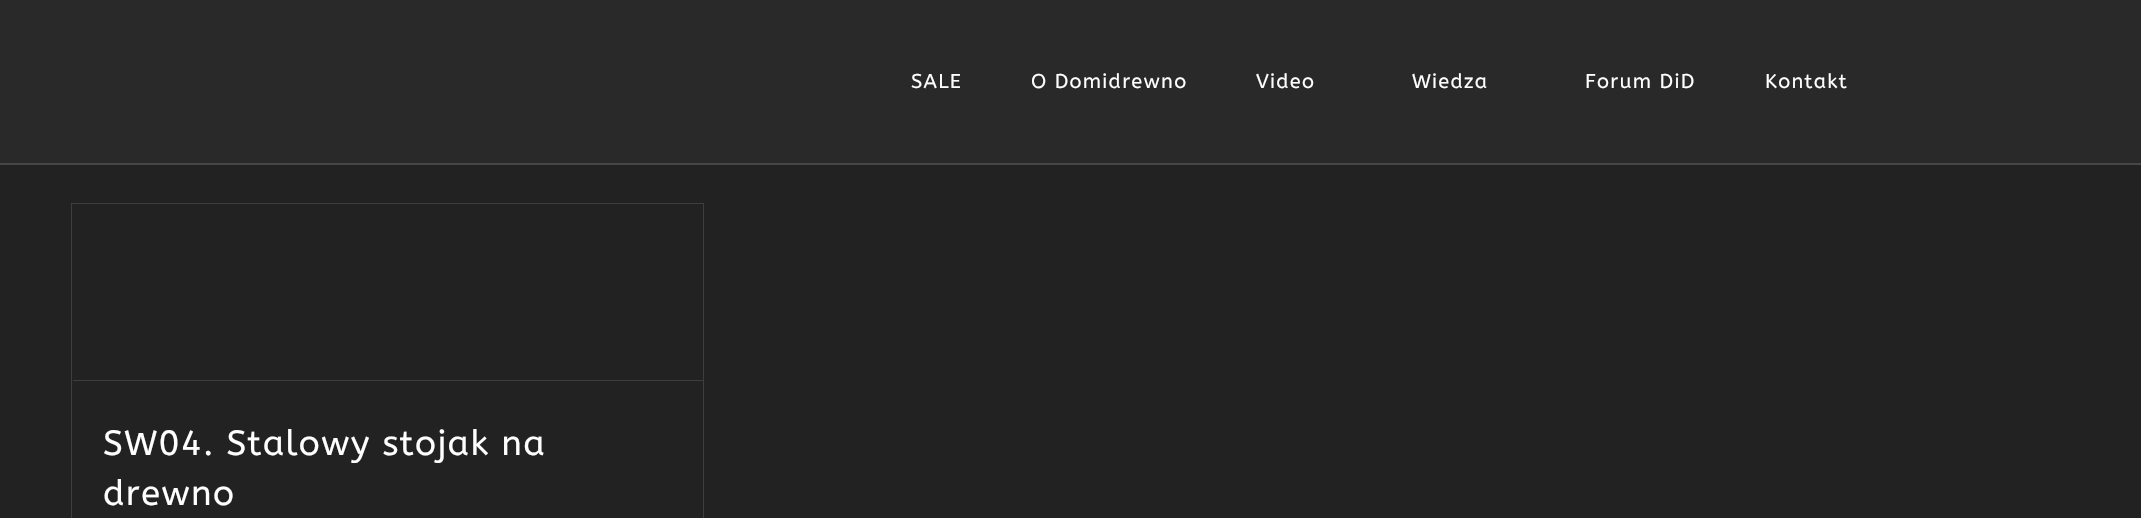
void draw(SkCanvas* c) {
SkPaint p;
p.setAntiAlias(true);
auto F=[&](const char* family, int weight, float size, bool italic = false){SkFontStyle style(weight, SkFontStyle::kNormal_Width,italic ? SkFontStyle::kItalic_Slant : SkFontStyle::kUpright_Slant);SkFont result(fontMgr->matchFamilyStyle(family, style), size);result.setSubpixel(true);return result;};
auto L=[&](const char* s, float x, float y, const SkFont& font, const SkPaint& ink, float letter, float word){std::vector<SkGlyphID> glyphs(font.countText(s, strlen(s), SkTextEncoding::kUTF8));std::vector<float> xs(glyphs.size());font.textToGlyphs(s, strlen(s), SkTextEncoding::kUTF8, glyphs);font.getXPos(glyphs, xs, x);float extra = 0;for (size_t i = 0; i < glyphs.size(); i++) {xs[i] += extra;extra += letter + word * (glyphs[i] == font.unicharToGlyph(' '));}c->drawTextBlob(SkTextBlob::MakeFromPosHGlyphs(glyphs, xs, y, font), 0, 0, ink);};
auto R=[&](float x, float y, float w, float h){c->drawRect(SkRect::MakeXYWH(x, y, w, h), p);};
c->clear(0xff464646);
p.setColor(0xff29292a);
R(0,0,2141,163);
auto f1 = F("ABeeZee",400,20);
p.setColor(0xffffffff);
L("SALE",911,88,f1,p,1.25,0);
L("O Domidrewno",1031,88,f1,p,1.25,0);
L("Video",1256,88,f1,p,1.25,0);
L("Wiedza",1412,88,f1,p,1.25,0);
L("Forum DiD",1585,88,f1,p,1.25,0);
L("Kontakt",1765,88,f1,p,1.25,0);
p.setColor(0xff222222);
R(0,165,2141,353);
p.setColor(0xff3e3e3e);
R(71,203,633,1);
R(703,203,1,315);
R(71,203,1,315);
R(73,380,630,1);
auto f2 = F("ABeeZee",400,35);
p.setColor(0xffffffff);
L("SW04. Stalowy stojak na",103,455,f2,p,1.25,0);
L("drewno",103,505,f2,p,1.25,0);
}
